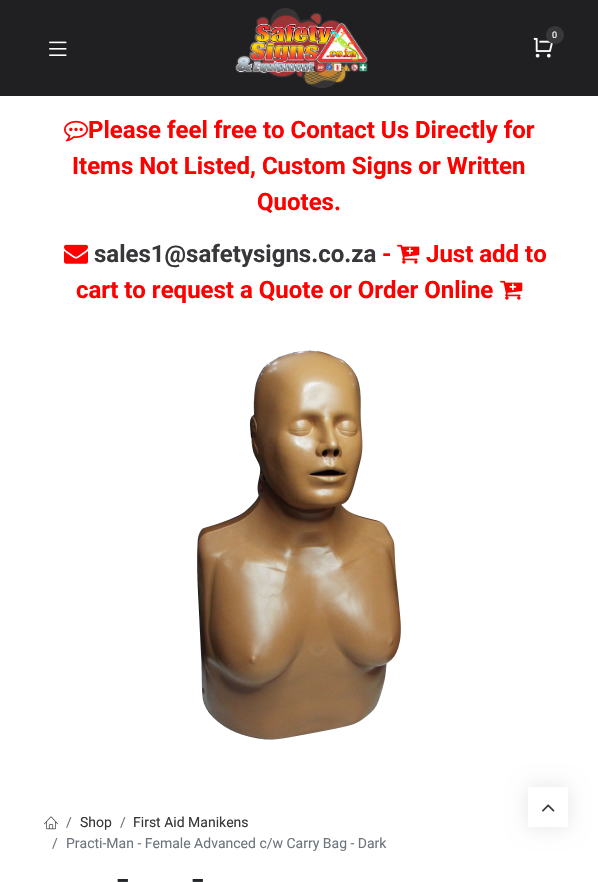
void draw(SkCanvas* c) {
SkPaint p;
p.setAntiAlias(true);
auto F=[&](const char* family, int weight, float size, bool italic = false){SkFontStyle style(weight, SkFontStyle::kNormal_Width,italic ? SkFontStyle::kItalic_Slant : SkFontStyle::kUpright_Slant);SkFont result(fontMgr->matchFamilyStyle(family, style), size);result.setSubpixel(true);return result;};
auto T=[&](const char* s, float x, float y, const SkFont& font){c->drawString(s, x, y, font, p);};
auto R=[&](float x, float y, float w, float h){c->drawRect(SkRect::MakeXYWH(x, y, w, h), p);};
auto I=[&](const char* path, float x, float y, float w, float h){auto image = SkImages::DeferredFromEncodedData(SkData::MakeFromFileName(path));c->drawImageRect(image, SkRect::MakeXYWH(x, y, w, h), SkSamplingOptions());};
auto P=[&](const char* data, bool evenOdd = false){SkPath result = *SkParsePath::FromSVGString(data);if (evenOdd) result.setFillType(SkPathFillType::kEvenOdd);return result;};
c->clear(0xffffffff);
p.setColor(0xff202022);
R(0,0,598,96);
I("1.png",235,8,133,80);
I("2.png",533,37,20,21);
p.setColor(0xff38383b);
c->drawCircle(555,35,9,p);
auto f1 = F("Roboto",400,9);
p.setColor(0xffffffff);
T("0",552,38,f1);
I("3.png",49,41,18,15);
I("4.png",64,120,24,22);
auto f2 = F("Roboto",700,24);
p.setColor(0xffff0000);
T("Please feel free to Contact Us Directly for",88,138,f2);
T("Items Not Listed, Custom Signs or Written",72,174,f2);
T("Quotes.",257,210,f2);
I("5.png",64,244,24,20);
p.setColor(0xff38383b);
T("sales1@safetysigns.co.za",94,262,f2);
p.setColor(0xffff0000);
T("-",382,262,f2);
I("6.png",397,244,23,20);
T("Just add to",426,262,f2);
T("cart to request a Quote or Order Online",76,298,f2);
I("6.png",500,280,23,20);
I("7.png",197,350,204,390);
I("8.png",44,816,14,14);
auto f3 = F("Roboto",400,14);
p.setColor(0xff6c757d);
T("/",66,827,f3);
p.setColor(0xff38383b);
T("Shop",80,827,f3);
p.setColor(0xff6c757d);
T("/",120,827,f3);
p.setColor(0xff38383b);
T("First Aid Manikens",133,827,f3);
p.setColor(0xff6c757d);
T("/",52,848,f3);
T("Practi-Man - Female Advanced c/w Carry Bag - Dark",66,848,f3);
auto f4 = F("Poppins",600,24);
p.setColor(0xff212529);
T("-",116,889,f4);
T("-",191,889,f4);
c->save();
c->clipPath(P("M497 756h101v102h-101zm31 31h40v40h-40z",true),true);
p.setColor(0x1a000000);
p.setMaskFilter(SkMaskFilter::MakeBlur(kNormal_SkBlurStyle, 10));
c->drawRect(SkRect::MakeXYWH(528,787,40,40),p);
p.setMaskFilter(nullptr);
c->restore();
I("9.png",542,804,13,8);
}
